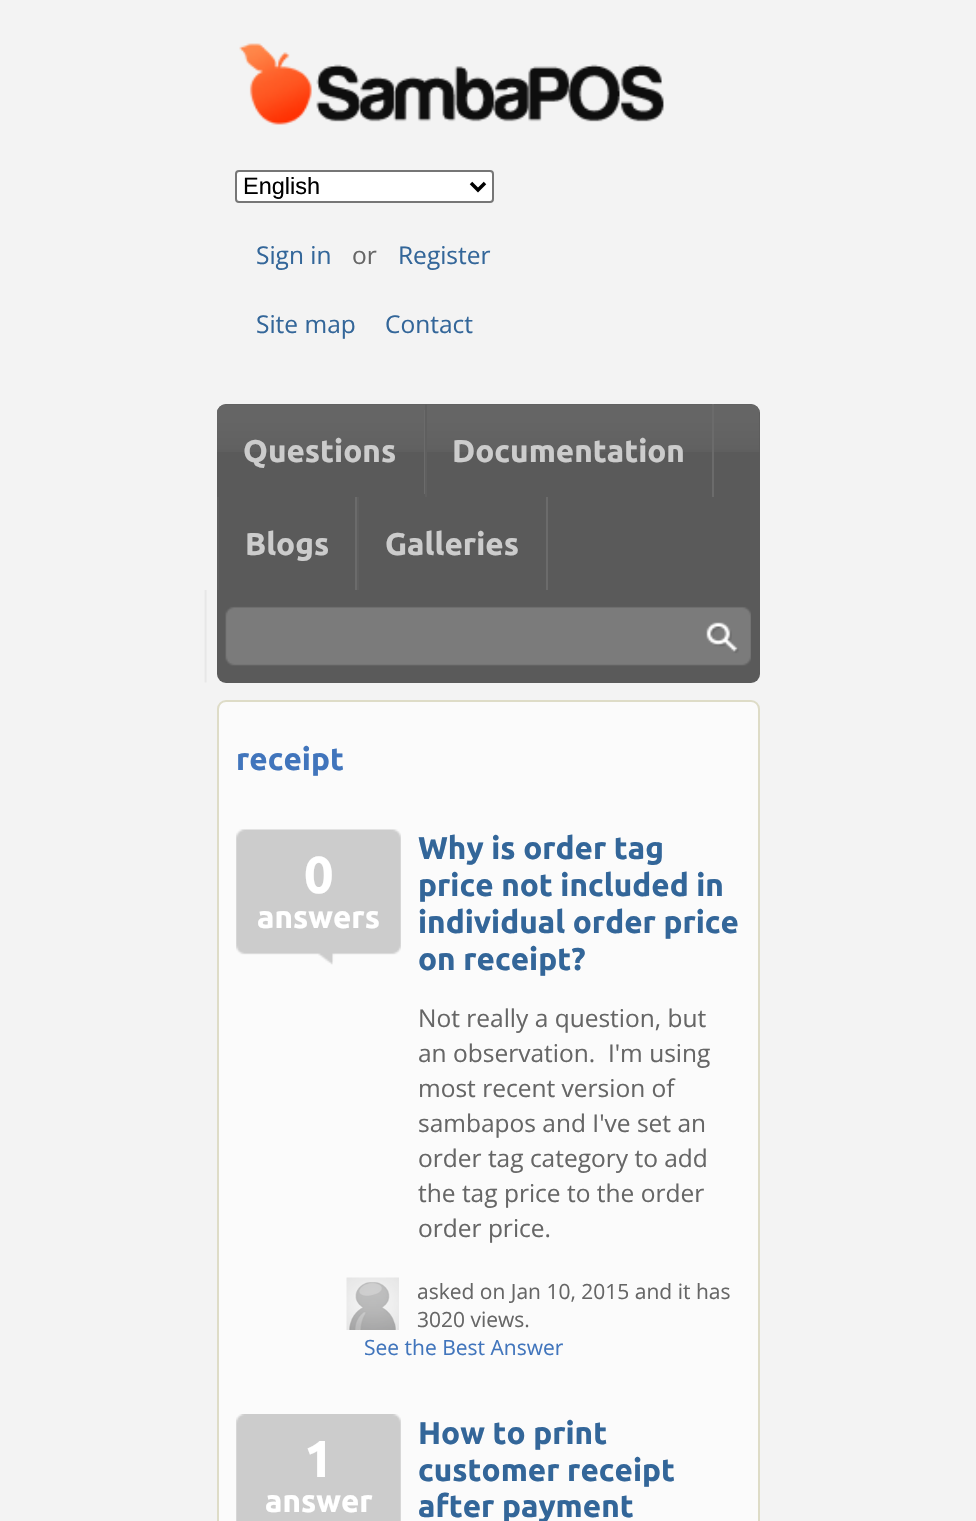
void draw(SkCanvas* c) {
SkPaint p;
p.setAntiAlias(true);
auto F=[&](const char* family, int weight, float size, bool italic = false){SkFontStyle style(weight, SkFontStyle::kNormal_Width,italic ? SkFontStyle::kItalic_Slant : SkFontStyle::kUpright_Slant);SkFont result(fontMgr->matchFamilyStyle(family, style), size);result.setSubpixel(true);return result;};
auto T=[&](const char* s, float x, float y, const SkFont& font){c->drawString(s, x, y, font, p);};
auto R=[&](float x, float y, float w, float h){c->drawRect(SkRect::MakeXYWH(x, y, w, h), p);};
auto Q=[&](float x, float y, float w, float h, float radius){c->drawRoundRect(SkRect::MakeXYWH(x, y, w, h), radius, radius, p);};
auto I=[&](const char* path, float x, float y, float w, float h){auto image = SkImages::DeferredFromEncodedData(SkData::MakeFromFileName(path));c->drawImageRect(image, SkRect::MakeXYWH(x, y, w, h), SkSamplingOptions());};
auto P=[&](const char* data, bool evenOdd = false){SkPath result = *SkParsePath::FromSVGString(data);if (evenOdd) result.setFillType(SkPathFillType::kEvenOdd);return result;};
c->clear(0xfff3f3f3);
I("1.png",239,43,425,82);
p.setColor(0xffffffff);
c->drawRoundRect(SkRect::MakeXYWH(236,171,257,31),3,3,p);
p.setStroke(true);
p.setStrokeWidth(2);
p.setColor(0xff767676);
c->drawRoundRect(SkRect::MakeXYWH(236,171,257,31),3,3,p);
p.setStrokeWidth(3.5);
p.setColor(0xff000000);
c->drawPath(P("M471 183l7 7l7-7"),p);
auto f1 = F("Liberation Sans",400,23.5);
p.setStroke(false);
T("English",243,194,f1);
auto f2 = F("Open Sans",400,24.5);
p.setColor(0xff336699);
T("Sign in",256,264,f2);
p.setColor(0xff666666);
T("or",352,264,f2);
p.setColor(0xff336699);
T("Register",398,264,f2);
T("Site map",256,333,f2);
T("Contact",385,333,f2);
p.setColor(0xff5a5a5a);
Q(217,404,543,279,9);
I("2.png",217,404,543,48);
p.setColor(0xff6b6b6b);
R(424,410,1,84);
auto f3 = F("Ubuntu",700,31.5);
p.setColor(0xffcccccc);
T("Questions",243,462,f3);
p.setColor(0xff6b6b6b);
R(712,404,2,93);
p.setColor(0xff5f5f5f);
R(425,404,2,93);
p.setColor(0xffcccccc);
T("Documentation",452,462,f3);
p.setColor(0xff6b6b6b);
R(355,497,2,93);
p.setColor(0xff5f5f5f);
R(217,497,2,93);
p.setColor(0xffcccccc);
T("Blogs",245,555,f3);
p.setColor(0xff6b6b6b);
R(546,497,2,93);
p.setColor(0xff5f5f5f);
R(357,497,2,93);
p.setColor(0xffcccccc);
T("Galleries",385,555,f3);
I("3.png",204,590,547,93);
p.setColor(0xfffbfbfb);
c->drawRoundRect(SkRect::MakeXYWH(218,701,541,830),8,8,p);
p.setStroke(true);
p.setStrokeWidth(2);
p.setColor(0xffdedcc7);
c->drawRoundRect(SkRect::MakeXYWH(218,701,541,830),8,8,p);
p.setStroke(false);
p.setColor(0xff4175bc);
T("receipt",236,770,f3);
I("4.png",236,829,165,136);
auto f4 = F("Ubuntu",700,52);
p.setColor(0xffffffff);
T("0",304,893,f4);
T("answers",257,928,f3);
p.setColor(0xff336699);
T("Why is order tag",418,859,f3);
T("price not included in",418,896,f3);
T("individual order price",418,933,f3);
T("on receipt?",418,970,f3);
p.setColor(0xff666666);
T("Not really a question, but",418,1027,f2);
T("an observation.  I'm using",418,1062,f2);
T("most recent version of",418,1097,f2);
T("sambapos and I've set an",418,1132,f2);
T("order tag category to add",418,1167,f2);
T("the tag price to the order",418,1202,f2);
T("order price.",418,1237,f2);
I("5.png",346,1277,53,53);
auto f5 = F("Open Sans",400,21);
T("asked on Jan 10, 2015 and it has",417,1299,f5);
T("3020 views.",417,1327,f5);
p.setColor(0xff4175bc);
T("See the Best Answer",364,1355,f5);
I("6.png",236,1414,165,107);
p.setColor(0xffffffff);
T("1",304,1477,f4);
T("answer",265,1512,f3);
p.setColor(0xff336699);
T("How to print",418,1444,f3);
T("customer receipt",418,1481,f3);
T("after payment",418,1517,f3);
}
